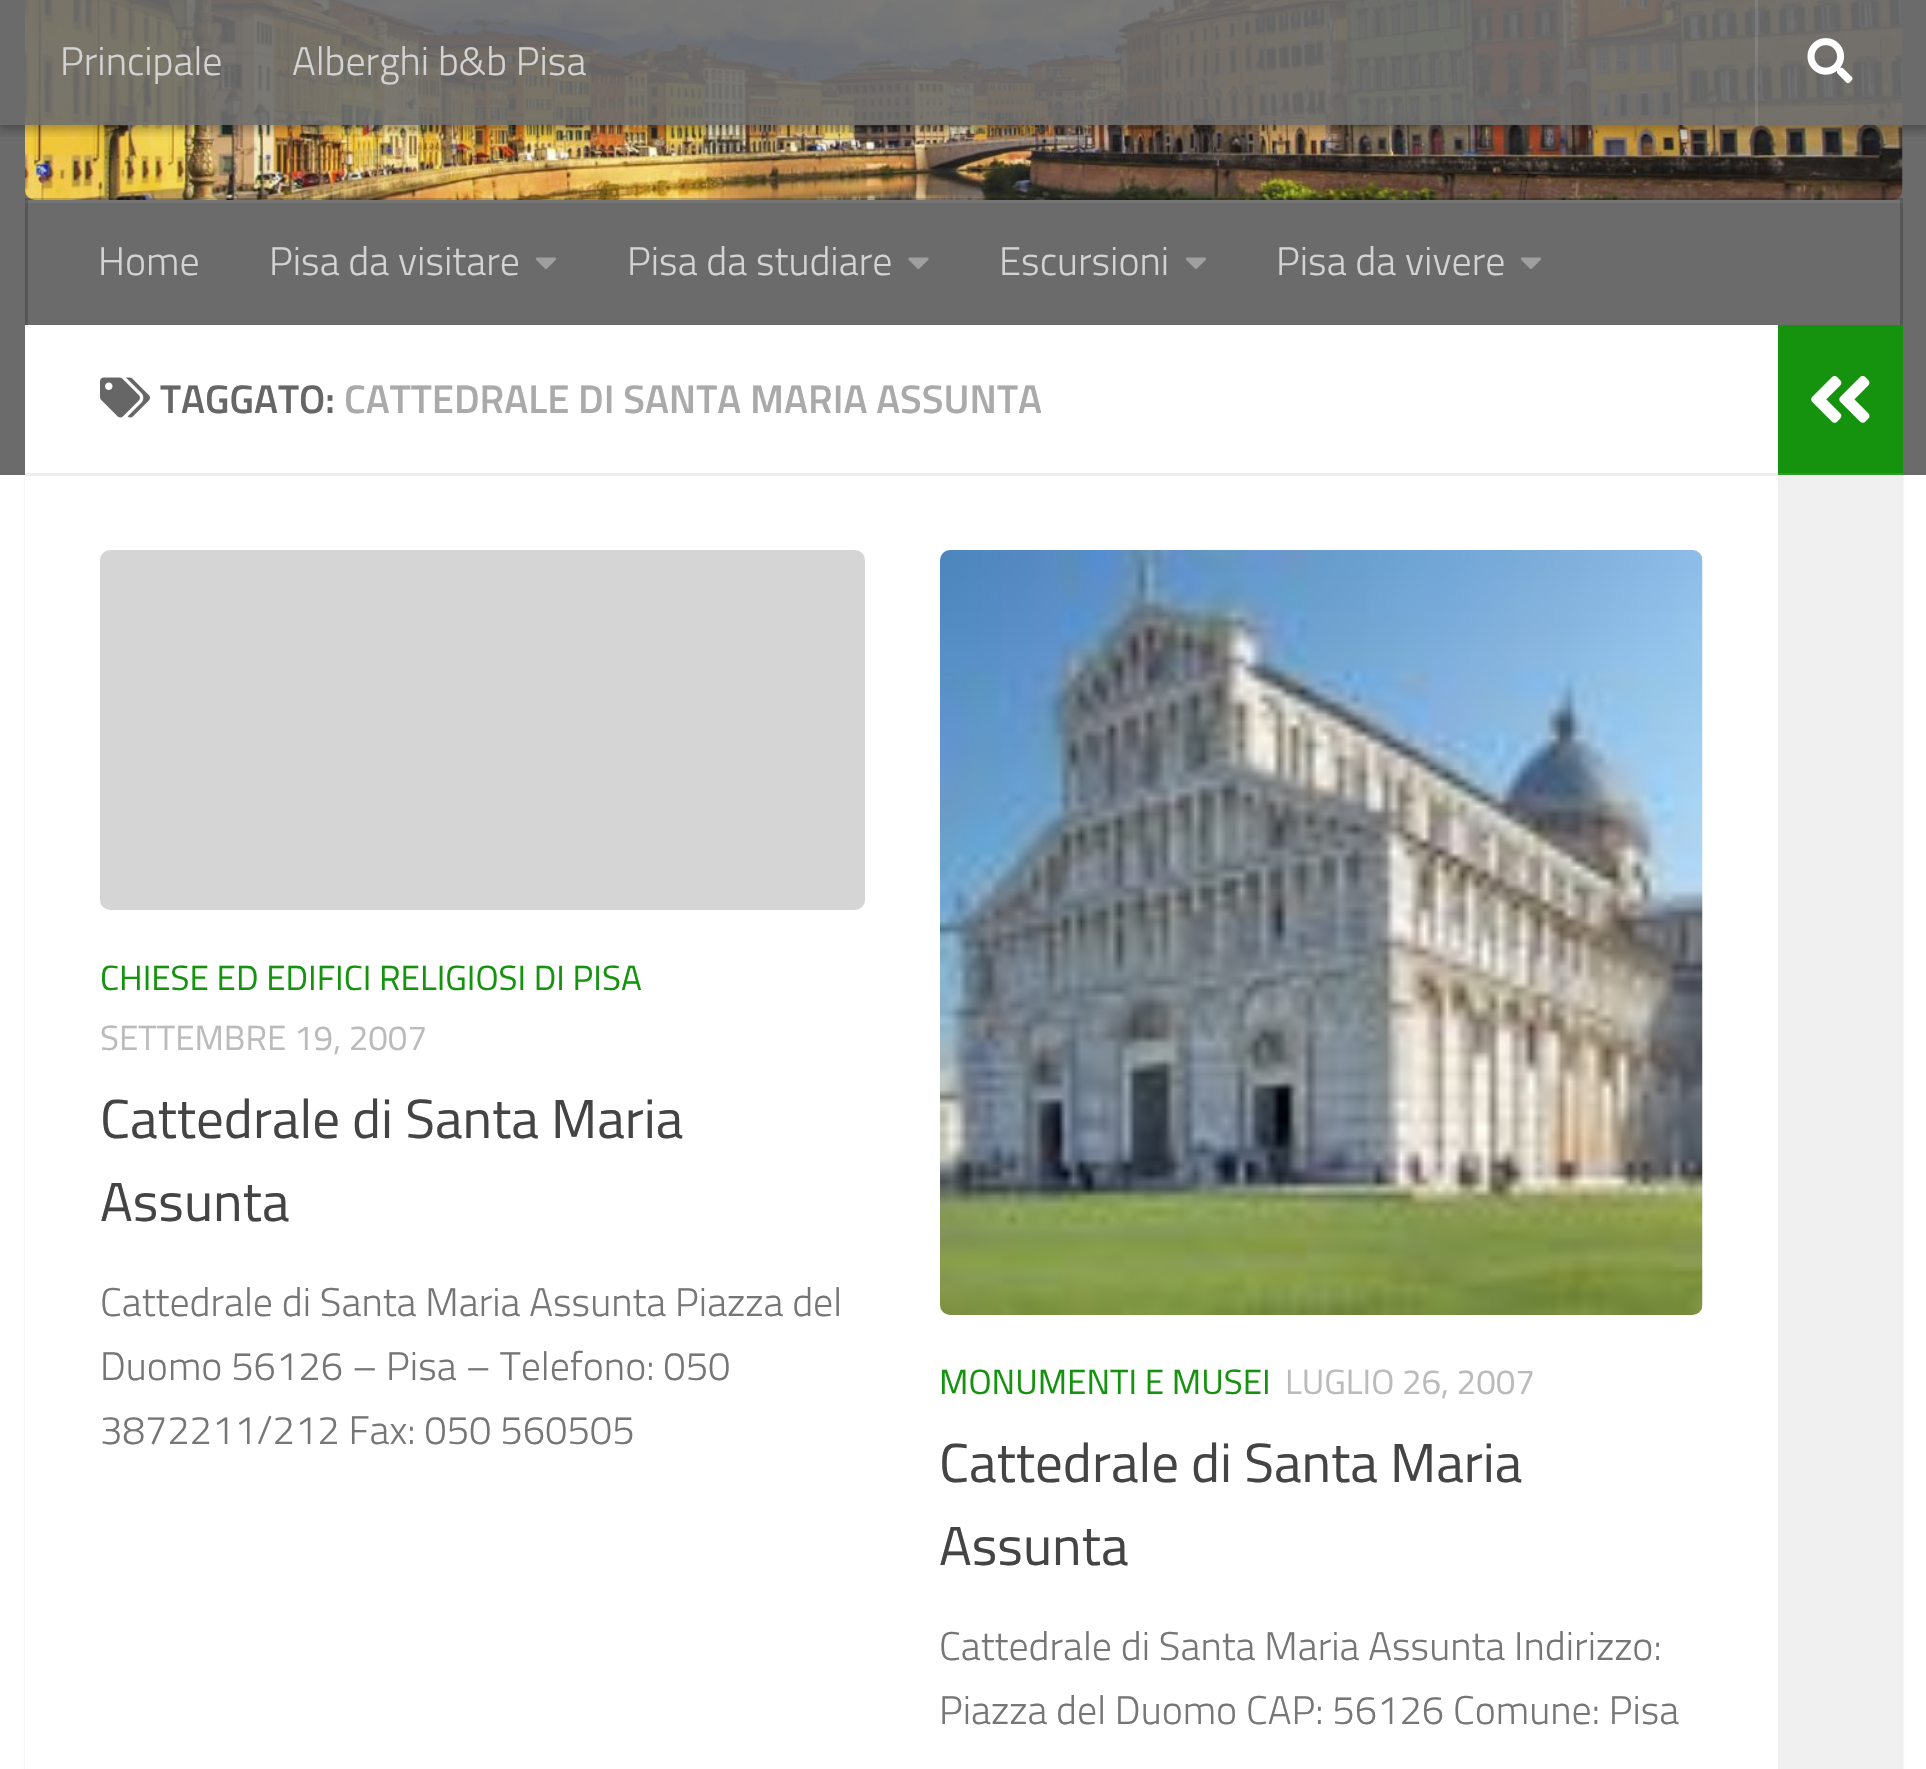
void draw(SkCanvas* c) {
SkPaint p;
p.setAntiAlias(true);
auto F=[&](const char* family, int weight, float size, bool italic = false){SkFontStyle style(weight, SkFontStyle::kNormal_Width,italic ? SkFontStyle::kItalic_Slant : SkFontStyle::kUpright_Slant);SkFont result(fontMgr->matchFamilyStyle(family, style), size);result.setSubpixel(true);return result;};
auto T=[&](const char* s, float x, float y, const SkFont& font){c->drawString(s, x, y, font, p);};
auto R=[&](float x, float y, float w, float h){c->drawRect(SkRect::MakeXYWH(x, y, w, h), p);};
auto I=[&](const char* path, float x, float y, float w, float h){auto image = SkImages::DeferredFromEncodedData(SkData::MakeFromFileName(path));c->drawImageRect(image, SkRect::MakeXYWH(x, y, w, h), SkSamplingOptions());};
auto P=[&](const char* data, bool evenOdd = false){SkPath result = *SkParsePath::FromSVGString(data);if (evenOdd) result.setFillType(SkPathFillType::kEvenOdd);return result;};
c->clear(0xffffffff);
p.setColor(0x1a000000);
p.setMaskFilter(SkMaskFilter::MakeBlur(kNormal_SkBlurStyle, 1));
c->drawRect(SkRect::MakeXYWH(25,328,1878,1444),p);
p.setMaskFilter(nullptr);
p.setColor(0xff6b6b6b);
R(0,0,1926,475);
I("2.png",25,0,1878,200);
c->save();
c->clipRect(SkRect::MakeXYWH(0,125,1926,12));
p.setColor(0x4d000000);
p.setMaskFilter(SkMaskFilter::MakeBlur(kNormal_SkBlurStyle, 5));
c->drawRect(SkRect::MakeXYWH(-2,0,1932,130),p);
p.setMaskFilter(nullptr);
c->restore();
p.setColor(0xe66b6b6b);
R(25,0,1878,125);
auto f1 = F("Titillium",300,40);
p.setColor(0xffd3d3d3);
T("Principale",60,75,f1);
T("Alberghi b&b Pisa",292,75,f1);
p.setColor(0x1affffff);
R(1755,0,3,125);
I("1.png",1807,38,46,46);
p.setColor(0x33000000);
c->drawPath(P("M25 198v2h1877v123h1v-125z"),p);
p.setColor(0xff565656);
R(1900,200,3,125);
R(25,200,3,125);
p.setColor(0x0dffffff);
R(25,200,1878,3);
p.setColor(0xffd3d3d3);
T("Home",98,275,f1);
T("Pisa da visitare",269,275,f1);
I("3.png",535,257,21,12);
T("Pisa da studiare",627,275,f1);
I("4.png",908,257,21,12);
T("Escursioni",999,275,f1);
I("3.png",1185,257,21,12);
T("Pisa da vivere",1276,275,f1);
I("3.png",1520,257,21,12);
p.setColor(0xffffffff);
R(25,325,1753,1444);
p.setColor(0xffeeeeee);
R(25,473,1753,3);
I("5.png",100,377,50,41);
auto f2 = F("Titillium",600,40);
p.setColor(0xff666666);
T("TAGGATO:",160,413,f2);
p.setColor(0xffaaaaaa);
T("CATTEDRALE DI SANTA MARIA ASSUNTA",344,413,f2);
I("6.png",100,550,765,360);
auto f3 = F("Titillium",400,35);
p.setColor(0xff15930e);
T("CHIESE ED EDIFICI RELIGIOSI DI PISA",100,990,f3);
p.setColor(0xffbbbbbb);
T("SETTEMBRE 19, 2007",100,1050,f3);
auto f4 = F("Titillium",400,55);
p.setColor(0xff444444);
T("Cattedrale di Santa Maria",100,1138,f4);
T("Assunta",100,1221,f4);
p.setColor(0xff767676);
T("Cattedrale di Santa Maria Assunta Piazza del",100,1316,f1);
T("Duomo 56126 – Pisa – Telefono: 050",100,1380,f1);
T("3872211/212 Fax: 050 560505",100,1444,f1);
I("7.png",940,550,763,765);
p.setColor(0xff15930e);
T("MONUMENTI E MUSEI",939,1394,f3);
p.setColor(0xffbbbbbb);
T("LUGLIO 26, 2007",1285,1394,f3);
p.setColor(0xff444444);
T("Cattedrale di Santa Maria",939,1482,f4);
T("Assunta",939,1565,f4);
p.setColor(0xff767676);
T("Cattedrale di Santa Maria Assunta Indirizzo:",939,1660,f1);
T("Piazza del Duomo CAP: 56126 Comune: Pisa",939,1724,f1);
p.setColor(0xff15930e);
R(1778,325,125,150);
p.setColor(0x1affffff);
R(1778,473,125,2);
I("8.png",1811,376,59,47);
p.setColor(0xfff0f0f0);
R(1778,475,125,1294);
}
